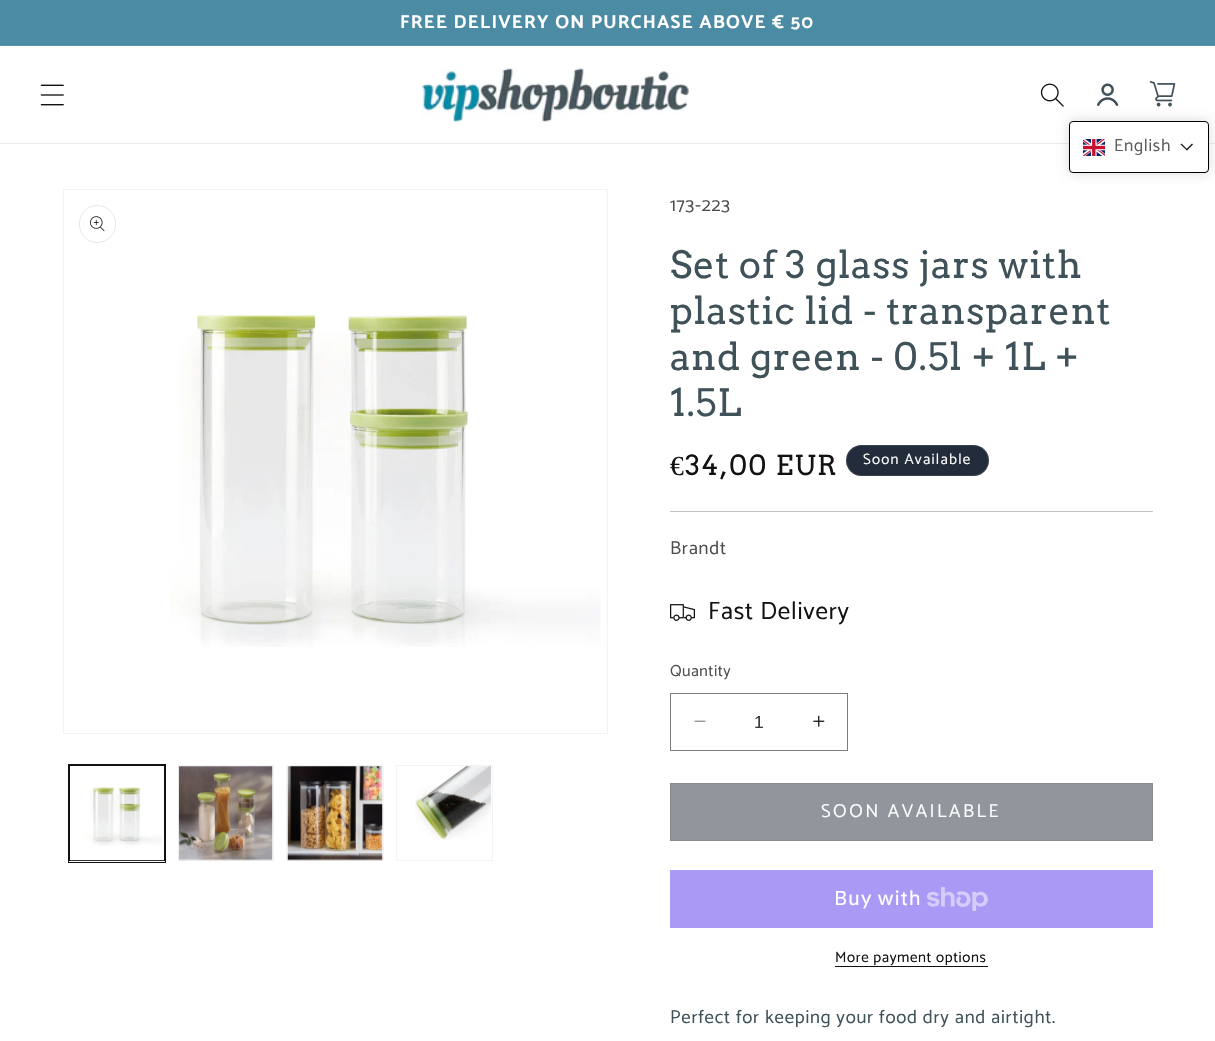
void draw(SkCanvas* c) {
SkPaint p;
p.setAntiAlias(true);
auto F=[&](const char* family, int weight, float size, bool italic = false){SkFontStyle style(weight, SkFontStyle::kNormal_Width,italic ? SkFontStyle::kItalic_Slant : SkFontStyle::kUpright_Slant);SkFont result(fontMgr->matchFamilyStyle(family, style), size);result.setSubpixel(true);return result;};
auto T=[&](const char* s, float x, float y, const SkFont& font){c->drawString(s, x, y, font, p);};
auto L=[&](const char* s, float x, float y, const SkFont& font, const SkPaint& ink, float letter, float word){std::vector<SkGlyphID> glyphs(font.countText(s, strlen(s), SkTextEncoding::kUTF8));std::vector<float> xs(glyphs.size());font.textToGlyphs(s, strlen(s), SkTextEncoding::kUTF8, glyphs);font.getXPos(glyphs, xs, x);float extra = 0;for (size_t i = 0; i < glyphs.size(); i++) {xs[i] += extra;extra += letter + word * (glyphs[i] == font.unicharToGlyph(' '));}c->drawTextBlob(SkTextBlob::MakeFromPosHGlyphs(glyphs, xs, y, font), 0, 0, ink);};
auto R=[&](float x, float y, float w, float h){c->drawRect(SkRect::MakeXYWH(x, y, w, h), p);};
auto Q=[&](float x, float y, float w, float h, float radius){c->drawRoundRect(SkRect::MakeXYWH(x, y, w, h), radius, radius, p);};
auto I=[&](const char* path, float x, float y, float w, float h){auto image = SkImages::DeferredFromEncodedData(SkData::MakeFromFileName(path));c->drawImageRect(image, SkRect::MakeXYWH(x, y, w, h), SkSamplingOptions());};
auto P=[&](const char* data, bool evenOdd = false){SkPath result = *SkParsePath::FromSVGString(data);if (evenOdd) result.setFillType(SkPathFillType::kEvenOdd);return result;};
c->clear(0xffffffff);
p.setColor(0xff4b8ba3);
R(0,0,1215,45);
p.setColor(0xff5994aa);
R(0,45,1215,1);
auto f1 = F("Catamaran",700,18.75);
p.setColor(0xffffffff);
L("FREE DELIVERY ON PURCHASE ABOVE € 50",400,28,f1,p,1.25,0);
p.setColor(0xffececec);
R(0,143,1215,1);
I("1.png",40,84,24,22);
I("2.png",422,68,267,54);
I("3.png",1040,83,24,24);
I("4.png",1097,83,22,23);
I("5.png",1149,81,27,26);
p.setColor(0x26000000);
p.setMaskFilter(SkMaskFilter::MakeBlur(kNormal_SkBlurStyle, 6));
c->drawRoundRect(SkRect::MakeXYWH(1069,121,140,52),4,4,p);
p.setMaskFilter(nullptr);
p.setColor(0xffffffff);
c->drawRoundRect(SkRect::MakeXYWH(1069.5,121.5,139,51),3.5,3.5,p);
p.setStroke(true);
p.setStrokeWidth(1);
p.setColor(0xff000000);
c->drawRoundRect(SkRect::MakeXYWH(1069.5,121.5,139,51),3.5,3.5,p);
I("6.png",1083,139,22,17);
auto f2 = F("Catamaran",400,17.5);
p.setStroke(false);
p.setColor(0xff5c5c5c);
L("English",1114,151,f2,p,.75,0);
p.setColor(0xff1a1a1a);
c->drawPath(P("M1192 143.5l1 1l-6 6l-1-1z"),p);
c->drawPath(P("M1181.5 143.5l6 6l-.5 1l-6.5-6z"),p);
p.setStroke(true);
p.setColor(0xfff3f3f3);
c->drawRect(SkRect::MakeXYWH(63.5,189.5,544,544),p);
p.setColor(0xffe7e7e7);
c->drawRoundRect(SkRect::MakeXYWH(79.5,205.5,36,37),18,18,p);
I("7.png",90,216,15,16);
I("8.png",170,311,431,336);
p.setColor(0xff121212);
c->drawRect(SkRect::MakeXYWH(68.5,764.5,97,98),p);
c->drawRect(SkRect::MakeXYWH(69.5,765.5,95,95),p);
I("9.png",70,787,94,74);
p.setColor(0xfff3f3f3);
c->drawRect(SkRect::MakeXYWH(178.5,765.5,95,95),p);
I("10.png",178,766,95,95);
c->drawRect(SkRect::MakeXYWH(286.5,765.5,97,95),p);
I("11.png",287,766,96,95);
c->drawRect(SkRect::MakeXYWH(396.5,765.5,96,95),p);
I("12.png",415,766,76,74);
auto f3 = F("Catamaran",400,18.75);
p.setStroke(false);
p.setColor(0xff4d4d4d);
L("173-223",670,211,f3,p,.75,0);
auto f4 = F("Arvo",400,37.5);
p.setColor(0xff405259);
L("Set of 3 glass jars with",670,278,f4,p,.75,0);
L("plastic lid - transparent",670,324,f4,p,.75,0);
L("and green - 0.5l + 1L +",670,370,f4,p,.75,0);
L("1.5L",670,416,f4,p,.75,0);
p.setColor(0xffc4c2c2);
R(670,511,483,1);
auto f5 = F("Liberation Serif",400,27.5);
p.setColor(0xff121212);
L("€",670,475,f5,p,1.6,0);
auto f6 = F("Arvo",400,27.5);
L("34,00 EUR",685,475,f6,p,1.6,0);
p.setColor(0xff232c3b);
Q(846,445,143,31,15.5);
p.setStroke(true);
p.setColor(0x1affffff);
c->drawRoundRect(SkRect::MakeXYWH(846.5,445.5,142,30),15,15,p);
auto f7 = F("Catamaran",400,15);
p.setStroke(false);
p.setColor(0xffffffff);
L("Soon Available",863,464,f7,p,1.25,0);
p.setColor(0xff4d4d4d);
L("Brandt",670,554,f3,p,.75,0);
I("13.png",670,604,25,17);
auto f8 = F("Catamaran",400,25);
p.setColor(0xff121212);
L("Fast Delivery",708,619,f8,p,.75,0);
auto f9 = F("Catamaran",400,16);
p.setColor(0xff4d4d4d);
L("Quantity",670,676,f9,p,.5,0);
I("14.png",694,720,12,2);
I("15.png",813,715,12,12);
p.setStroke(true);
p.setColor(0xff7d7d7d);
c->drawRect(SkRect::MakeXYWH(670.5,693.5,177,57),p);
auto f10 = F("Liberation Sans",400,17.5);
p.setStroke(false);
p.setColor(0xff363636);
T("1",754,728,f10);
p.setColor(0xff91969d);
R(671,784,481,56);
p.setStroke(true);
p.setColor(0xff898989);
c->drawRect(SkRect::MakeXYWH(670.5,783.5,482,57),p);
p.setStroke(false);
p.setColor(0xffffffff);
L("SOON AVAILABLE",821,817,f3,p,2.5,0);
p.setColor(0xffaa99f5);
R(670,870,483,58);
auto f11 = F("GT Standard",400,20);
p.setColor(0xffffffff);
L("Buy with",834,905,f11,p,.75,0);
I("16.png",927,886,61,25);
p.setColor(0xff121212);
L("More payment options",835,962,f7,p,.6,0);
R(835,966,153,1);
p.setColor(0xff405259);
L("Perfect for keeping your food dry and airtight.",670,1023,f3,p,.75,0);
}
